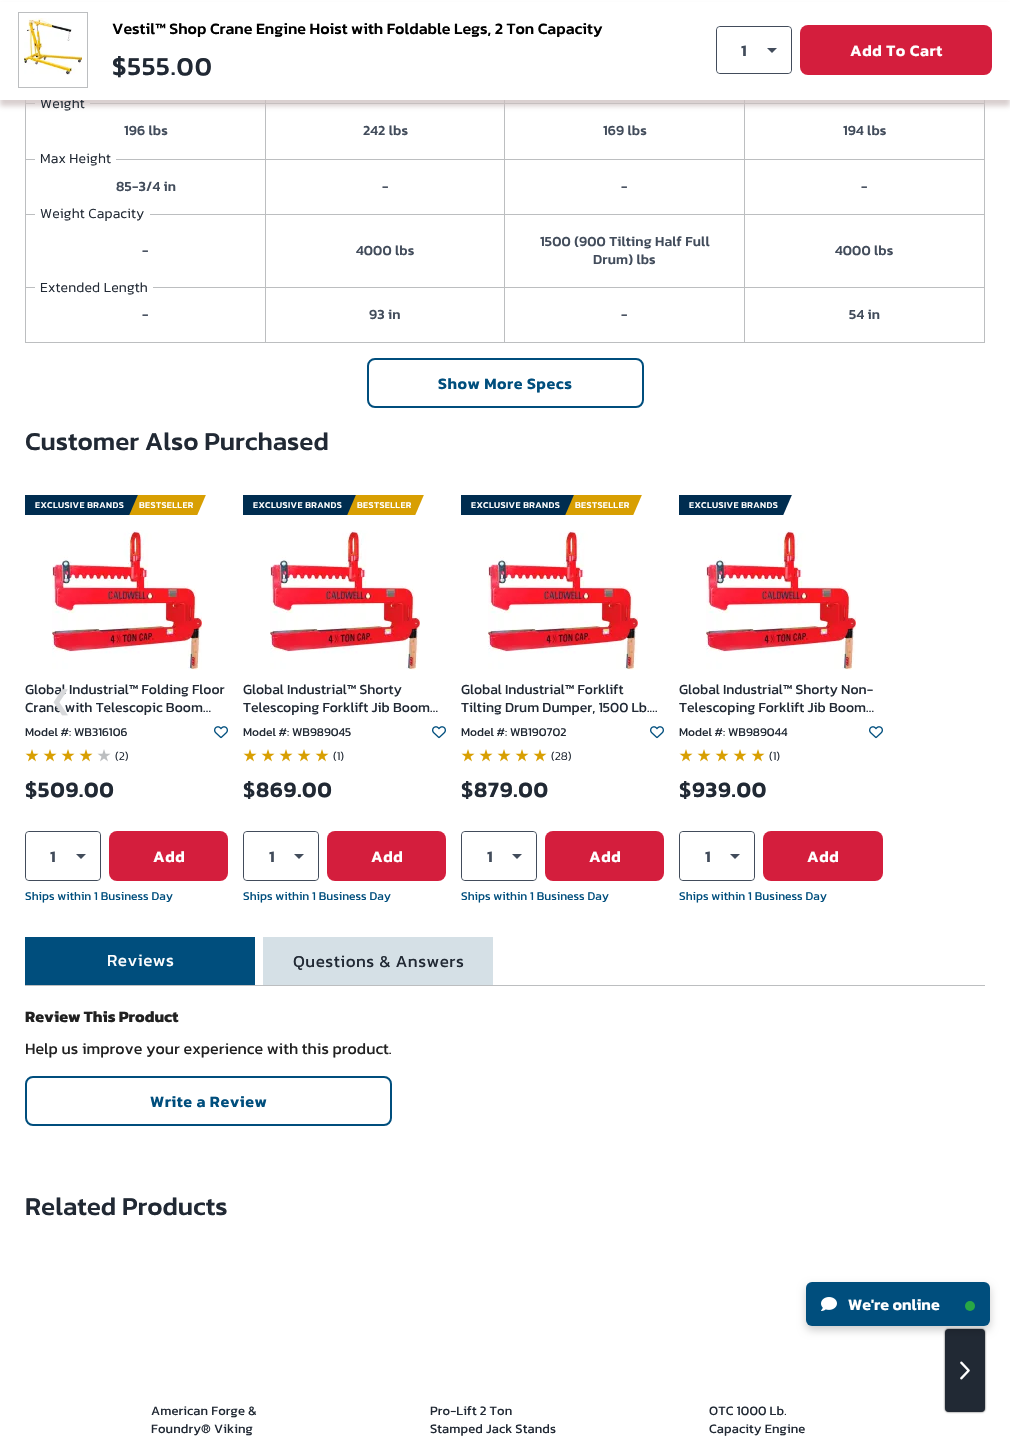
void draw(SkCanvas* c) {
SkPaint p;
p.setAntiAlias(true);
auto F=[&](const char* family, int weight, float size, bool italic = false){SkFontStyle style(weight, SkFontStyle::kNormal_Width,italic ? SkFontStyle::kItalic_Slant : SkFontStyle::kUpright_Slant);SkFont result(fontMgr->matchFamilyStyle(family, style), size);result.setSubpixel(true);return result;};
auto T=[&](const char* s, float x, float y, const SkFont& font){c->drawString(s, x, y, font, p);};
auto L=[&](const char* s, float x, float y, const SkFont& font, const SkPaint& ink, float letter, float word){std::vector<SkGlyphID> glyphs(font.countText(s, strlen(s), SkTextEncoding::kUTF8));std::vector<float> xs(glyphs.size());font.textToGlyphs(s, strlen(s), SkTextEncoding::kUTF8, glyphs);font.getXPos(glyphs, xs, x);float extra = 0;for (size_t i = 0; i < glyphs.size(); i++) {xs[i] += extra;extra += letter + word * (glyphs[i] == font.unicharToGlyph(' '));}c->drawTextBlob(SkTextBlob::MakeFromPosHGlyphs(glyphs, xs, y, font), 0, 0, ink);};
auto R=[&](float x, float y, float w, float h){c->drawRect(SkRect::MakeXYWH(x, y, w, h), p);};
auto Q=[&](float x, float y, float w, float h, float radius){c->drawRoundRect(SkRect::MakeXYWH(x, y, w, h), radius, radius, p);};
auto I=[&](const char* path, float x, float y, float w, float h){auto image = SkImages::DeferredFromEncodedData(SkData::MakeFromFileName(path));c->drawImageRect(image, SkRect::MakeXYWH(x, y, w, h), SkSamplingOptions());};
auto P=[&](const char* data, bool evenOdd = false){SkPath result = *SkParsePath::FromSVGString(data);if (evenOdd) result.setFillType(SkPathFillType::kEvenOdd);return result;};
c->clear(0xffffffff);
p.setColor(0xffbcbec0);
R(744,103,241,1);
R(744,159,241,1);
R(744,214,241,1);
R(744,287,241,1);
R(984,287,1,56);
R(744,342,241,1);
R(744,287,1,56);
R(504,287,241,1);
R(744,214,1,74);
R(504,214,241,1);
R(744,159,1,56);
R(504,159,241,1);
R(744,103,1,57);
R(504,103,241,1);
R(504,342,241,1);
R(504,287,1,56);
R(265,287,240,1);
R(504,214,1,74);
R(265,214,240,1);
R(504,159,1,56);
R(265,159,240,1);
R(504,103,1,57);
R(265,103,240,1);
R(265,342,240,1);
R(265,287,1,56);
R(25,287,241,1);
R(265,214,1,74);
R(25,214,241,1);
R(265,159,1,56);
R(25,159,241,1);
R(265,103,1,57);
R(25,103,241,1);
p.setColor(0xffffffff);
R(35,103,55,1);
p.setColor(0xffbcbec0);
R(25,342,241,1);
R(25,287,1,56);
R(25,214,1,74);
R(25,159,1,56);
R(25,100,1,60);
R(984,214,1,74);
R(984,159,1,56);
R(984,100,1,60);
R(265,100,1,4);
R(504,100,1,4);
R(744,100,1,4);
p.setColor(0xbfcbbdbd);
p.setMaskFilter(SkMaskFilter::MakeBlur(kNormal_SkBlurStyle, 2.5));
c->drawRect(SkRect::MakeXYWH(0,6,1010,100),p);
p.setMaskFilter(nullptr);
auto f1 = F("Kanit",300,14);
p.setColor(0xff212934);
L("Weight",40,108,f1,p,.15,0);
p.setColor(0xffffffff);
R(0,2,1010,98);
p.setStroke(true);
p.setStrokeWidth(1);
p.setColor(0xffbcbec0);
c->drawRect(SkRect::MakeXYWH(18.5,12.5,69,75),p);
I("1.png",24,18,58,57);
c->save();
c->clipRect(SkRect::MakeXYWH(112,19,515,18));
auto f2 = F("Kanit",500,16);
p.setStroke(false);
p.setColor(0xff000000);
T("Vestil™ Shop Crane Engine Hoist with Foldable Legs, 2 Ton Capacity",112,34,f2);
c->restore();
auto f3 = F("Kanit",500,26);
p.setColor(0xff212934);
L("$555.00",112,75,f3,p,1,0);
p.setStroke(true);
p.setColor(0xff424c5b);
c->drawRoundRect(SkRect::MakeXYWH(716.5,26.5,75,47),3.5,3.5,p);
p.setStroke(false);
p.setColor(0xffffffff);
Q(717,27,74,46,4);
auto f4 = F("Kanit",600,16);
p.setColor(0xff424c5b);
T("1",741,56,f4);
c->drawPath(P("M767 48l5 5l5-5z"),p);
p.setColor(0xffd41e3d);
Q(800,25,192,50,8);
p.setColor(0xffffffff);
L("Add To Cart",850,56,f4,p,.5,0);
auto f5 = F("Kanit",500,14);
p.setColor(0xff424c5b);
L("196 lbs",124,135,f5,p,.15,0);
L("242 lbs",363,135,f5,p,.15,0);
L("169 lbs",603,135,f5,p,.15,0);
L("194 lbs",843,135,f5,p,.15,0);
p.setColor(0xffffffff);
R(35,159,81,1);
p.setColor(0xff212934);
L("Max Height",40,163,f1,p,.15,0);
p.setColor(0xff424c5b);
L("85-3/4 in",116,191,f5,p,.15,0);
L("-",382,191,f5,p,.15,0);
L("-",621,191,f5,p,.15,0);
L("-",861,191,f5,p,.15,0);
p.setColor(0xffffffff);
R(35,214,115,1);
p.setColor(0xff212934);
L("Weight Capacity",40,218,f1,p,.15,0);
p.setColor(0xff424c5b);
L("-",142,255,f5,p,.15,0);
L("4000 lbs",356,255,f5,p,.15,0);
L("1500 (900 Tilting Half Full",540,246,f5,p,.15,0);
L("Drum) lbs",593,264,f5,p,.15,0);
L("4000 lbs",835,255,f5,p,.15,0);
p.setColor(0xffffffff);
R(35,287,118,1);
p.setColor(0xff212934);
L("Extended Length",40,292,f1,p,.15,0);
p.setColor(0xff424c5b);
L("-",142,319,f5,p,.15,0);
L("93 in",369,319,f5,p,.15,0);
L("-",621,319,f5,p,.15,0);
L("54 in",849,319,f5,p,.15,0);
p.setStroke(true);
p.setStrokeWidth(2);
p.setColor(0xff004e7d);
c->drawRoundRect(SkRect::MakeXYWH(368,359,275,48),7,7,p);
p.setStroke(false);
L("Show More Specs",438,389,f4,p,.5,0);
p.setColor(0xff212934);
T("Customer Also Purchased",25,450,f3);
c->save();
c->clipRect(SkRect::MakeXYWH(129,495,79,20));
p.setColor(0xffd89f02);
c->drawPath(P("M208 490h-175v30h159c2 0 3-1 4-2z"),p);
c->restore();
c->save();
c->clipRect(SkRect::MakeXYWH(25,495,115,20));
p.setColor(0xff002d50);
c->drawPath(P("M140 490h-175v30h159c2 0 3-1 4-2z"),p);
c->restore();
auto f6 = F("Kanit",500,9);
p.setColor(0xffffffff);
L("EXCLUSIVE BRANDS",35,508,f6,p,.4,0);
L("BESTSELLER",139,508,f6,p,.4,0);
I("2.png",52,530,150,140);
auto f7 = F("Kanit",400,14);
p.setColor(0xff212934);
T("Global Industrial™ Folding Floor",25,694,f7);
T("Crane with Telescopic Boom…",25,712,f7);
auto f8 = F("Kanit",400,12);
T("Model #: WB316106",25,736,f8);
I("3.png",214,726,14,13);
I("4.png",25,749,14,13);
I("4.png",43,749,14,13);
I("4.png",61,749,14,13);
I("4.png",79,749,14,13);
I("5.png",97,749,14,13);
auto f9 = F("Kanit",300,12);
T("(2)",115,760,f9);
auto f10 = F("Kanit",600,22);
L("$509.00",25,797,f10,p,.75,0);
p.setStroke(true);
p.setStrokeWidth(1);
p.setColor(0xff424c5b);
c->drawRoundRect(SkRect::MakeXYWH(25.5,831.5,75,49),3.5,3.5,p);
p.setStroke(false);
p.setColor(0xffffffff);
Q(26,832,74,48,4);
p.setColor(0xff424c5b);
T("1",50,862,f4);
c->drawPath(P("M76 854l5 5l5-5z"),p);
p.setColor(0xffd41e3d);
Q(109,831,119,50,8);
p.setColor(0xffffffff);
L("Add",153,862,f4,p,.5,0);
p.setColor(0xff004e7d);
T("Ships within 1 Business Day",25,900,f8);
c->save();
c->clipRect(SkRect::MakeXYWH(347,495,79,20));
p.setColor(0xffd89f02);
c->drawPath(P("M426 490h-175v30h159c2 0 3-1 4-2z"),p);
c->restore();
c->save();
c->clipRect(SkRect::MakeXYWH(243,495,115,20));
p.setColor(0xff002d50);
c->drawPath(P("M358 490h-175v30h159c2 0 3-1 4-2z"),p);
c->restore();
p.setColor(0xffffffff);
L("EXCLUSIVE BRANDS",253,508,f6,p,.4,0);
L("BESTSELLER",357,508,f6,p,.4,0);
I("2.png",270,530,150,140);
p.setColor(0xff212934);
T("Global Industrial™ Shorty",243,694,f7);
T("Telescoping Forklift Jib Boom…",243,712,f7);
T("Model #: WB989045",243,736,f8);
I("3.png",432,726,14,13);
I("4.png",243,749,14,13);
I("4.png",261,749,14,13);
I("4.png",279,749,14,13);
I("4.png",297,749,14,13);
I("4.png",315,749,14,13);
T("(1)",333,760,f9);
L("$869.00",243,797,f10,p,.75,0);
p.setStroke(true);
p.setColor(0xff424c5b);
c->drawRoundRect(SkRect::MakeXYWH(243.5,831.5,75,49),3.5,3.5,p);
p.setStroke(false);
p.setColor(0xffffffff);
Q(244,832,74,48,4);
p.setColor(0xff424c5b);
T("1",269,862,f4);
c->drawPath(P("M294 854l5 5l5-5z"),p);
p.setColor(0xffd41e3d);
Q(327,831,119,50,8);
p.setColor(0xffffffff);
L("Add",371,862,f4,p,.5,0);
p.setColor(0xff004e7d);
T("Ships within 1 Business Day",243,900,f8);
c->save();
c->clipRect(SkRect::MakeXYWH(565,495,79,20));
p.setColor(0xffd89f02);
c->drawPath(P("M644 490h-175v30h159c2 0 3-1 4-2z"),p);
c->restore();
c->save();
c->clipRect(SkRect::MakeXYWH(461,495,115,20));
p.setColor(0xff002d50);
c->drawPath(P("M576 490h-175v30h159c2 0 3-1 4-2z"),p);
c->restore();
p.setColor(0xffffffff);
L("EXCLUSIVE BRANDS",471,508,f6,p,.4,0);
L("BESTSELLER",575,508,f6,p,.4,0);
I("2.png",488,530,150,140);
p.setColor(0xff212934);
T("Global Industrial™ Forklift",461,694,f7);
T("Tilting Drum Dumper, 1500 Lb.…",461,712,f7);
T("Model #: WB190702",461,736,f8);
I("3.png",650,726,14,13);
I("4.png",461,749,14,13);
I("4.png",479,749,14,13);
I("4.png",497,749,14,13);
I("4.png",515,749,14,13);
I("4.png",533,749,14,13);
T("(28)",551,760,f9);
L("$879.00",461,797,f10,p,.75,0);
p.setStroke(true);
p.setColor(0xff424c5b);
c->drawRoundRect(SkRect::MakeXYWH(461.5,831.5,75,49),3.5,3.5,p);
p.setStroke(false);
p.setColor(0xffffffff);
Q(462,832,74,48,4);
p.setColor(0xff424c5b);
T("1",487,862,f4);
c->drawPath(P("M512 854l5 5l5-5z"),p);
p.setColor(0xffd41e3d);
Q(545,831,119,50,8);
p.setColor(0xffffffff);
L("Add",589,862,f4,p,.5,0);
p.setColor(0xff004e7d);
T("Ships within 1 Business Day",461,900,f8);
c->save();
c->clipRect(SkRect::MakeXYWH(679,495,115,20));
p.setColor(0xff002d50);
c->drawPath(P("M794 490h-175v30h159c2 0 3-1 4-2z"),p);
c->restore();
p.setColor(0xffffffff);
L("EXCLUSIVE BRANDS",689,508,f6,p,.4,0);
I("2.png",706,530,150,140);
p.setColor(0xff212934);
T("Global Industrial™ Shorty Non-",679,694,f7);
T("Telescoping Forklift Jib Boom…",679,712,f7);
T("Model #: WB989044",679,736,f8);
I("3.png",869,726,14,13);
I("4.png",679,749,14,13);
I("4.png",697,749,14,13);
I("4.png",715,749,14,13);
I("4.png",733,749,14,13);
I("4.png",751,749,14,13);
T("(1)",769,760,f9);
L("$939.00",679,797,f10,p,.75,0);
p.setStroke(true);
p.setColor(0xff424c5b);
c->drawRoundRect(SkRect::MakeXYWH(679.5,831.5,75,49),3.5,3.5,p);
p.setStroke(false);
p.setColor(0xffffffff);
Q(680,832,74,48,4);
p.setColor(0xff424c5b);
T("1",705,862,f4);
c->drawPath(P("M730 854l5 5l5-5z"),p);
p.setColor(0xffd41e3d);
Q(763,831,120,50,8);
p.setColor(0xffffffff);
L("Add",807,862,f4,p,.5,0);
p.setColor(0xff004e7d);
T("Ships within 1 Business Day",679,900,f8);
auto f11 = F("DejaVu Sans",400,26);
p.setColor(0xffd8d9db);
T("❮",50,709,f11);
p.setColor(0xffbcbec0);
R(25,985,960,1);
p.setColor(0xff004e7d);
R(25,937,230,48);
auto f12 = F("Kanit",400,17);
p.setColor(0xffffffff);
L("Reviews",107,966,f12,p,.5,0);
p.setColor(0xffd5e0e6);
R(263,937,230,48);
p.setColor(0xff212934);
L("Questions & Answers",293,967,f12,p,.5,0);
auto f13 = F("Kanit",700,16);
p.setColor(0xff212121);
T("Review This Product",25,1022,f13);
auto f14 = F("Kanit",400,16);
T("Help us improve your experience with this product.",25,1054,f14);
p.setStroke(true);
p.setStrokeWidth(2);
p.setColor(0xff004e7d);
c->drawRoundRect(SkRect::MakeXYWH(26,1077,365,48),7,7,p);
p.setStroke(false);
L("Write a Review",150,1107,f4,p,.5,0);
p.setColor(0xff212934);
T("Related Products",25,1215,f3);
p.setColor(0xff333333);
p.setMaskFilter(SkMaskFilter::MakeBlur(kNormal_SkBlurStyle, 1));
c->drawRoundRect(SkRect::MakeXYWH(945,1329,40,83),4,4,p);
p.setMaskFilter(nullptr);
p.setColor(0xff212934);
Q(945,1329,40,83,4);
I("6.png",960,1361,10,19);
auto f15 = F("Kanit",400,13);
L("American Forge &",151,1415,f15,p,.1,0);
L("Foundry® Viking",151,1433,f15,p,.1,0);
L("Pro-Lift 2 Ton",430,1415,f15,p,.1,0);
L("Stamped Jack Stands",430,1433,f15,p,.1,0);
L("OTC 1000 Lb.",709,1415,f15,p,.1,0);
L("Capacity Engine",709,1433,f15,p,.1,0);
p.setColor(0x33000000);
p.setMaskFilter(SkMaskFilter::MakeBlur(kNormal_SkBlurStyle, 4));
c->drawRoundRect(SkRect::MakeXYWH(806,1286,184,44),6,6,p);
p.setMaskFilter(nullptr);
p.setColor(0xff004e7d);
Q(806,1282,184,44,6);
I("7.png",821,1297,16,14);
p.setColor(0xffffffff);
T("We're online",848,1310,f4);
p.setColor(0xff28a745);
c->drawCircle(970,1306,5,p);
}
